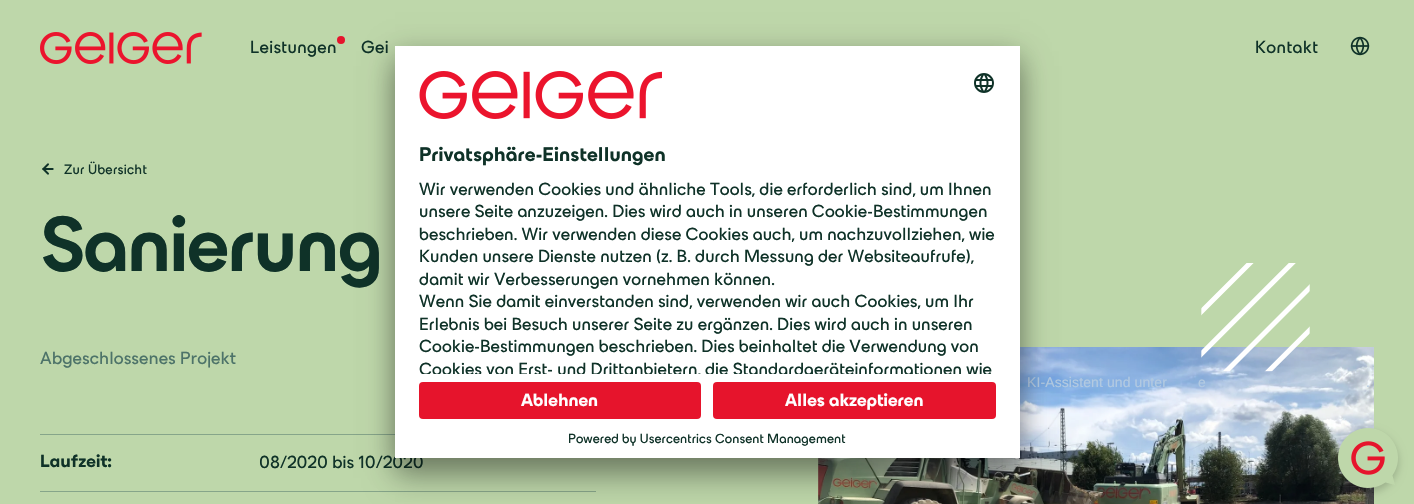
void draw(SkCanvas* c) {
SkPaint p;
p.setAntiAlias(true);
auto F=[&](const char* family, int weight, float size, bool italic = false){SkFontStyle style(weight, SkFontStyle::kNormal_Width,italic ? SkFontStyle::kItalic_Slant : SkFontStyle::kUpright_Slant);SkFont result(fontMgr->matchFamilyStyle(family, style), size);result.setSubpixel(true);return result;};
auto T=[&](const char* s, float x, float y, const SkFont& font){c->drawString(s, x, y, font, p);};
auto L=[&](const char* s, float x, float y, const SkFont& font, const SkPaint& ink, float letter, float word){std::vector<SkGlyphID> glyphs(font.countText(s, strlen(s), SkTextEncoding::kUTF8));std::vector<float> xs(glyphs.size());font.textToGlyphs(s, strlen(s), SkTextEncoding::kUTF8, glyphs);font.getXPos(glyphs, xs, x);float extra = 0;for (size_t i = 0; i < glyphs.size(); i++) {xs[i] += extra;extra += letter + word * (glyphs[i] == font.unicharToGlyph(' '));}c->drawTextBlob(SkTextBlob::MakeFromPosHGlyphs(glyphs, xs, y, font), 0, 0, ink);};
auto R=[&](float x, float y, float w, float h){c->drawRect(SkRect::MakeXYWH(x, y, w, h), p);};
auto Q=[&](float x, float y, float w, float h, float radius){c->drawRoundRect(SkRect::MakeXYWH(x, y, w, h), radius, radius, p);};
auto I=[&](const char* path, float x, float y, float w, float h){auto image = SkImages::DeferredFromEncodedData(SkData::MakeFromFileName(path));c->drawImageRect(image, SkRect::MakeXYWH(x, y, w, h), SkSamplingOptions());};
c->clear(0xffbed7aa);
I("1.png",40,32,162,32);
auto f1 = F("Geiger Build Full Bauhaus",400,18);
p.setColor(0xff0f3228);
L("Leistungen",250,53,f1,p,.4,0);
p.setColor(0xffe6142c);
c->drawCircle(341,40,4,p);
p.setColor(0xff0f3228);
L("Gei",361,53,f1,p,.4,0);
L("Kontakt",1255,53,f1,p,.4,0);
I("2.png",1350,36,20,20);
I("3.png",42,163,12,12);
auto f2 = F("Geiger Build Full Bauhaus",400,14);
L("Zur Übersicht",64,174,f2,p,.25,0);
auto f3 = F("Geiger Build Full Bauhaus",600,80);
L("Sanierung",40,271,f3,p,-1.5,0);
auto f4 = F("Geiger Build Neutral",400,18);
p.setColor(0xff4d7369);
L("Abgeschlossenes Projekt",40,364,f4,p,.1,0);
p.setColor(0xff86a58a);
R(40,434,355,1);
auto f5 = F("Geiger Build Neutral",700,18);
p.setColor(0xff0f3228);
L("Laufzeit:",40,467,f5,p,.1,0);
L("08/2020 bis 10/2020",259,468,f4,p,.1,0);
p.setColor(0xff86a58a);
R(40,491,556,1);
I("5.png",818,347,556,157);
I("4.png",1201,263,109,109);
auto f6 = F("Liberation Sans",400,14);
p.setColor(0xffb3cae1);
L("KI-Assistent und unter",1027,387,f6,p,.1,0);
L("e",1198,387,f6,p,.1,0);
L(".",1366,387,f6,p,.1,0);
p.setColor(0x33000000);
p.setMaskFilter(SkMaskFilter::MakeBlur(kNormal_SkBlurStyle, 4));
c->drawRoundRect(SkRect::MakeXYWH(1338,432,60,60),30,30,p);
p.setMaskFilter(nullptr);
I("6.png",1338,428,60,60);
p.setColor(0x4d000000);
p.setMaskFilter(SkMaskFilter::MakeBlur(kNormal_SkBlurStyle, 14));
c->drawRect(SkRect::MakeXYWH(395,66,625,412),p);
p.setMaskFilter(nullptr);
p.setColor(0x38000000);
p.setMaskFilter(SkMaskFilter::MakeBlur(kNormal_SkBlurStyle, 13));
c->drawRect(SkRect::MakeXYWH(395,51,625,412),p);
p.setMaskFilter(nullptr);
p.setColor(0xffffffff);
R(395,46,625,412);
I("7.png",419,71,243,48);
I("8.png",974,73,20,20);
auto f7 = F("Geiger Build Full Bauhaus",700,20.25);
p.setColor(0xff0f3228);
L("Privatsphäre-Einstellungen",419,161,f7,p,.1,0);
L("Wir verwenden Cookies und ähnliche Tools, die erforderlich sind, um Ihnen",419,195,f1,p,.1,0);
L("unsere Seite anzuzeigen. Dies wird auch in unseren Cookie-Bestimmungen",419,217,f1,p,.1,0);
L("beschrieben. Wir verwenden diese Cookies auch, um nachzuvollziehen, wie",419,240,f1,p,.1,0);
L("Kunden unsere Dienste nutzen (z. B. durch Messung der Websiteaufrufe),",419,262,f1,p,.1,0);
L("damit wir Verbesserungen vornehmen können.",419,285,f1,p,.1,0);
L("Wenn Sie damit einverstanden sind, verwenden wir auch Cookies, um Ihr",419,307,f1,p,.1,0);
L("Erlebnis bei Besuch unserer Seite zu ergänzen. Dies wird auch in unseren",419,330,f1,p,.1,0);
L("Cookie-Bestimmungen beschrieben. Dies beinhaltet die Verwendung von",419,352,f1,p,.1,0);
c->save();
c->clipRect(SkRect::MakeXYWH(419,174,577,200));
L("Cookies von Erst- und Drittanbietern, die Standardgeräteinformationen wie",419,375,f1,p,.1,0);
c->restore();
p.setColor(0xffe6142c);
Q(419,382,282,37,4);
auto f8 = F("Geiger Build Full Bauhaus",700,18);
p.setColor(0xffffffff);
T("Ablehnen",521,406,f8);
p.setColor(0xffe6142c);
Q(713,382,283,37,4);
p.setColor(0xffffffff);
T("Alles akzeptieren",785,406,f8);
auto f9 = F("Geiger Build Full Bauhaus",400,13.5);
p.setColor(0xff0f3228);
L("Powered by Usercentrics Consent Management",568,443,f9,p,.1,0);
}
